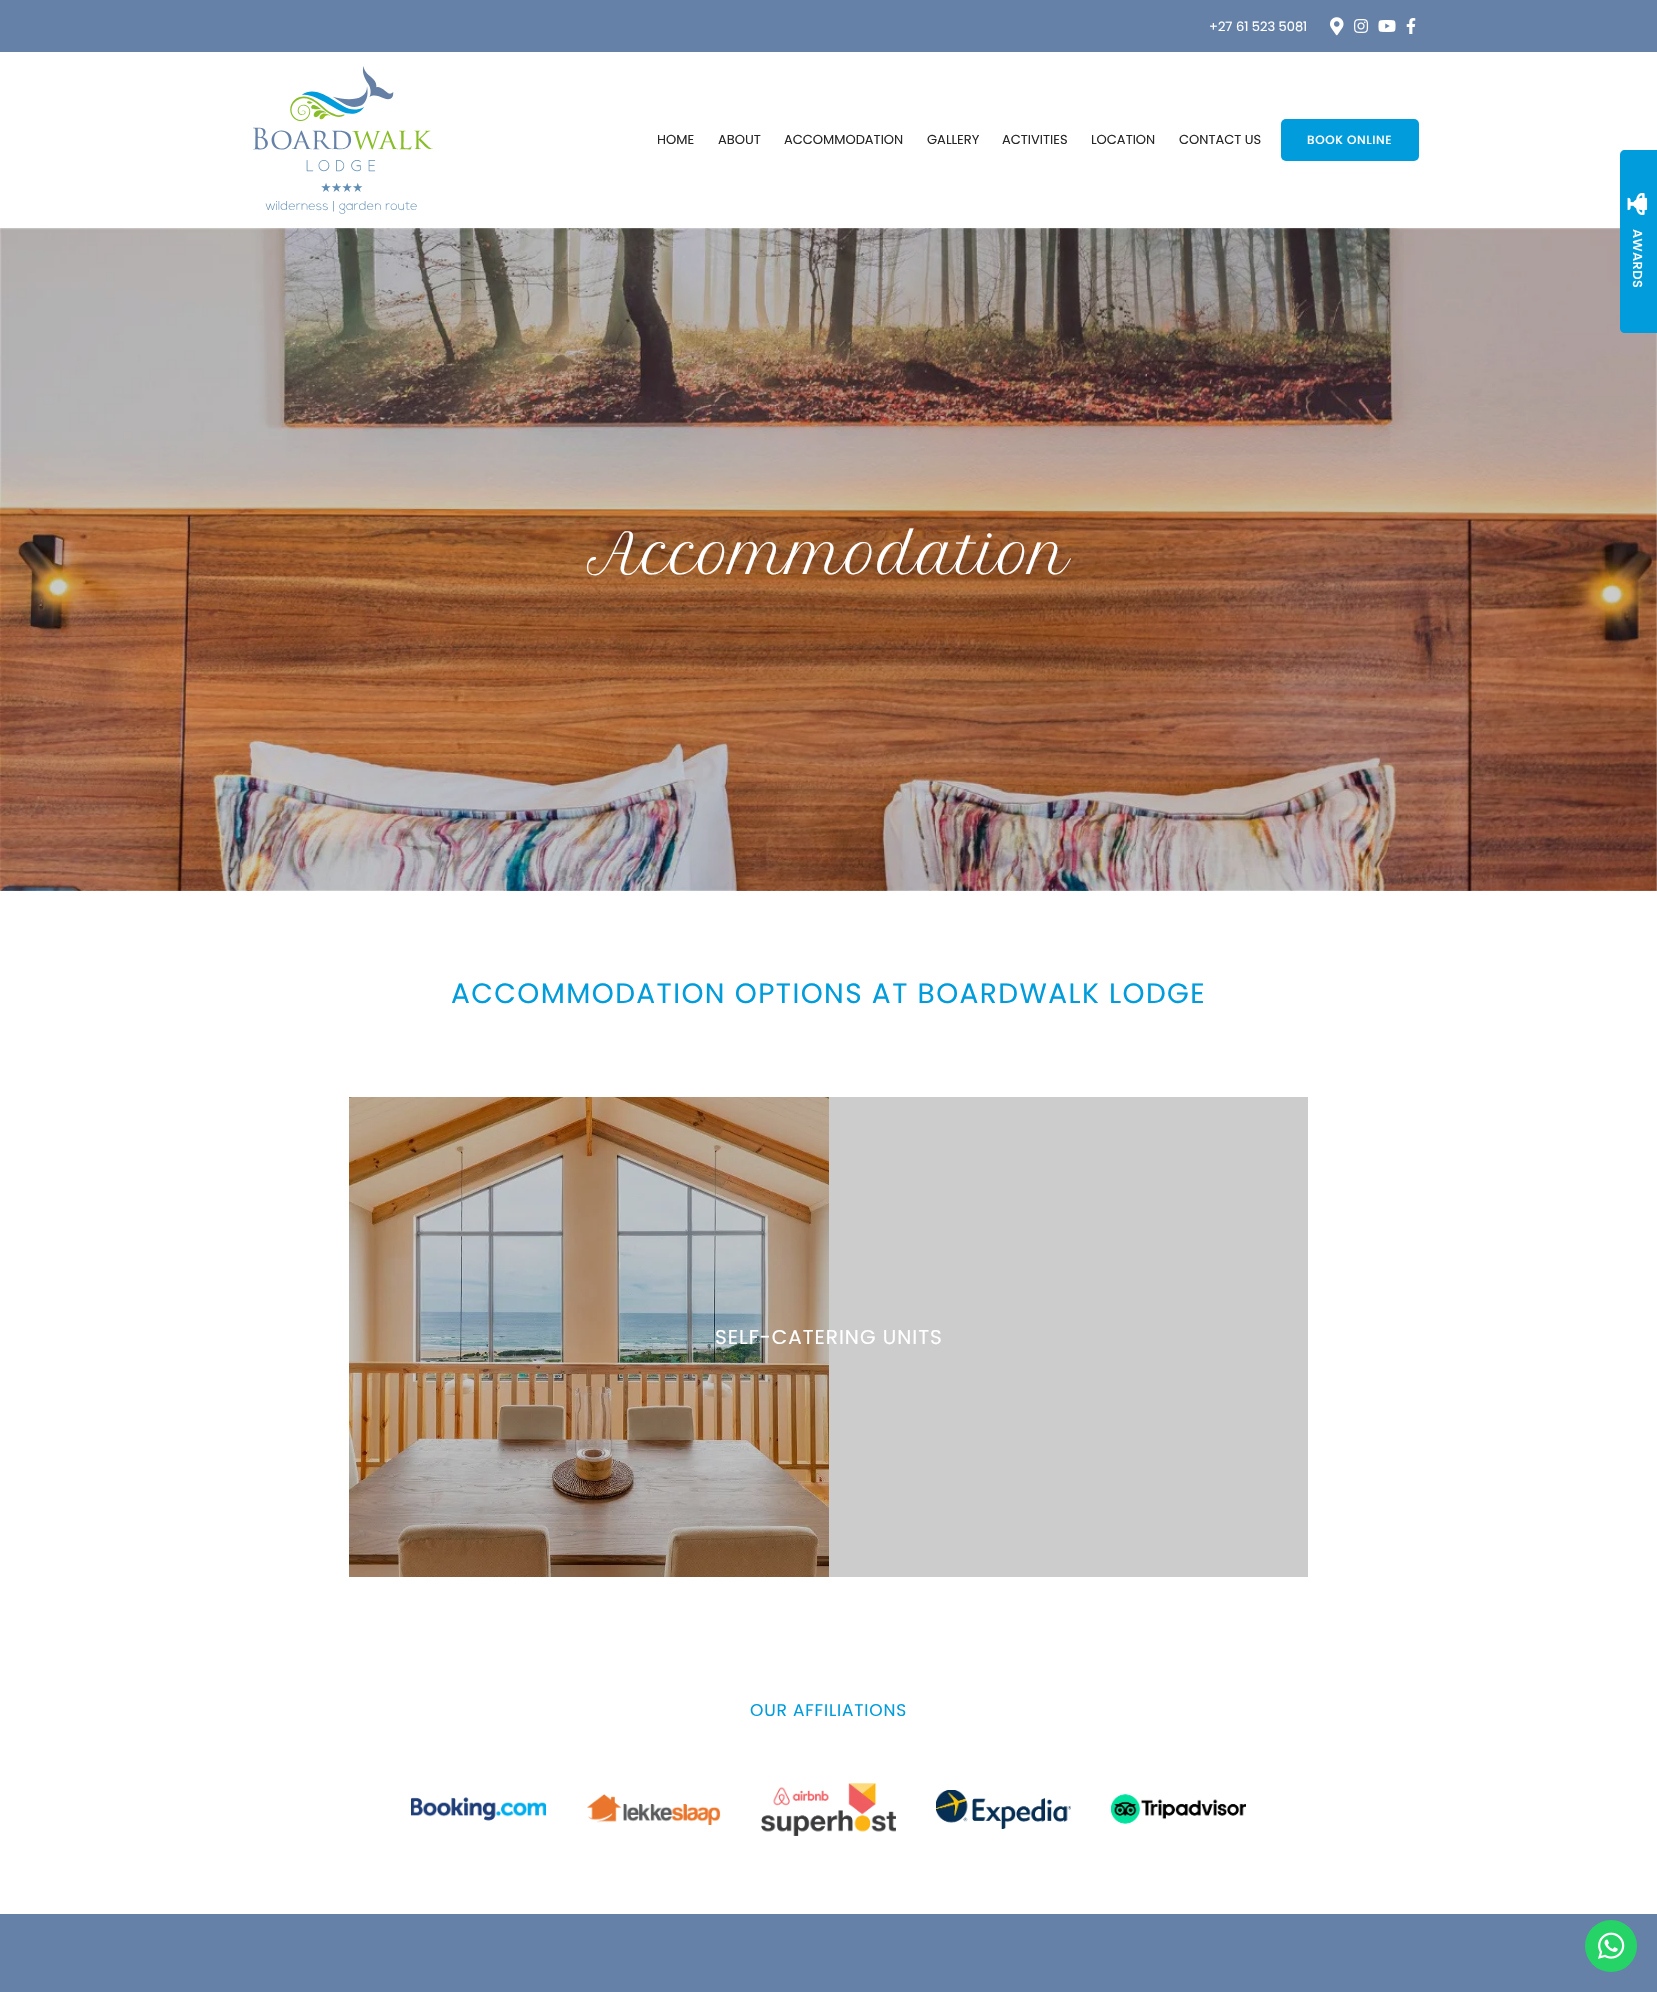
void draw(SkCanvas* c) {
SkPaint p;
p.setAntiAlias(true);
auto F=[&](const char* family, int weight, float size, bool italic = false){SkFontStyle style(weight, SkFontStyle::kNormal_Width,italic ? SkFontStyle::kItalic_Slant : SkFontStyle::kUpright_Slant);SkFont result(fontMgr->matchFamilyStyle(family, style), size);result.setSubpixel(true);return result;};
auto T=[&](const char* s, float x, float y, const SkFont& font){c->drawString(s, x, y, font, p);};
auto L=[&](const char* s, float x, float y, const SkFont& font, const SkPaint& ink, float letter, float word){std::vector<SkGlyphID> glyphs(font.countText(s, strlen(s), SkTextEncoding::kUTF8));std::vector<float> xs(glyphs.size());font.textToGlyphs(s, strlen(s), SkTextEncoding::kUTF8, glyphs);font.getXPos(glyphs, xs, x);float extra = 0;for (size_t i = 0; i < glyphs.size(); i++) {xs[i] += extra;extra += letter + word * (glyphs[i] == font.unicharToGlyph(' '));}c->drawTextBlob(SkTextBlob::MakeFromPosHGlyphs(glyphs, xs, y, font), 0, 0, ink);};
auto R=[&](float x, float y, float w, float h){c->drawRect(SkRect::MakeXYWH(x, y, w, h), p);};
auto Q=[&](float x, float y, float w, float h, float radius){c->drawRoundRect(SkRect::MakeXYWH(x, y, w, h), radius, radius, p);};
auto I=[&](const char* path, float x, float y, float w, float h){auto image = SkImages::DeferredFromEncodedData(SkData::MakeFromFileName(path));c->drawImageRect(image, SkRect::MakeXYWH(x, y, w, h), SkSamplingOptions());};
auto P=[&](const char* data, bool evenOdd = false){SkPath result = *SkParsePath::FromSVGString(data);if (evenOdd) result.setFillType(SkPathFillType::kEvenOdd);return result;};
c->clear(0xffffffff);
p.setColor(0xffcccccc);
R(0,228,1657,663);
R(829,1097,479,480);
p.setColor(0xff6681a8);
R(0,0,1657,52);
auto f1 = F("Poppins",400,13);
p.setColor(0xffffffff);
T("+27 61 523 5081",1209,31,f1);
I("1.png",1330,17,14,19);
I("2.png",1354,19,15,14);
I("3.png",1378,20,18,12);
I("4.png",1406,18,10,16);
I("5.png",253,66,180,148);
p.setColor(0xff272727);
T("HOME",657,144,f1);
T("ABOUT",718,144,f1);
T("ACCOMMODATION",784,144,f1);
T("GALLERY",927,144,f1);
T("ACTIVITIES",1002,144,f1);
T("LOCATION",1091,144,f1);
T("CONTACT US",1179,144,f1);
p.setColor(0xff009cdb);
Q(1281,119,138,42,5);
auto f2 = F("Poppins",500,12);
p.setColor(0xffffffff);
L("BOOK ONLINE",1307,144,f2,p,.6,0);
I("7.png",0,228,1657,663);
p.setColor(0xff009cdb);
c->drawPath(P("M1625 150h32v183h-32c-3 0-5-2-5-5v-173c0-3 2-5 5-5z"),p);
I("6.png",1627,193,21,22);
auto f3 = F("Poppins",500,13);
p.setColor(0xffffffff);
c->save();
c->rotate(90,1633,229);
L("AWARDS",1633,229,f3,p,.5,0);
c->restore();
auto f4 = F("Petit Formal Script",400,54.5);
T("Accommodation",587,574,f4);
auto f5 = F("Poppins",400,28);
p.setColor(0xff009cdb);
L("ACCOMMODATION OPTIONS AT BOARDWALK LODGE",451,1003,f5,p,1.4,0);
I("8.png",349,1097,480,480);
auto f6 = F("Poppins",400,20);
p.setColor(0xffffffff);
L("SELF-CATERING UNITS",715,1344,f6,p,1,0);
auto f7 = F("Poppins",400,17);
p.setColor(0xff009cdb);
L("OUR AFFILIATIONS",750,1716,f7,p,.8,0);
I("9.png",411,1797,135,24);
I("10.png",587,1794,134,31);
I("11.png",761,1783,135,53);
I("12.png",936,1790,135,39);
I("13.png",1111,1794,135,30);
p.setColor(0xff6681a8);
R(0,1914,1657,78);
p.setColor(0xff25d366);
c->drawCircle(1611,1946,26,p);
I("14.png",1598,1932,27,27);
}
